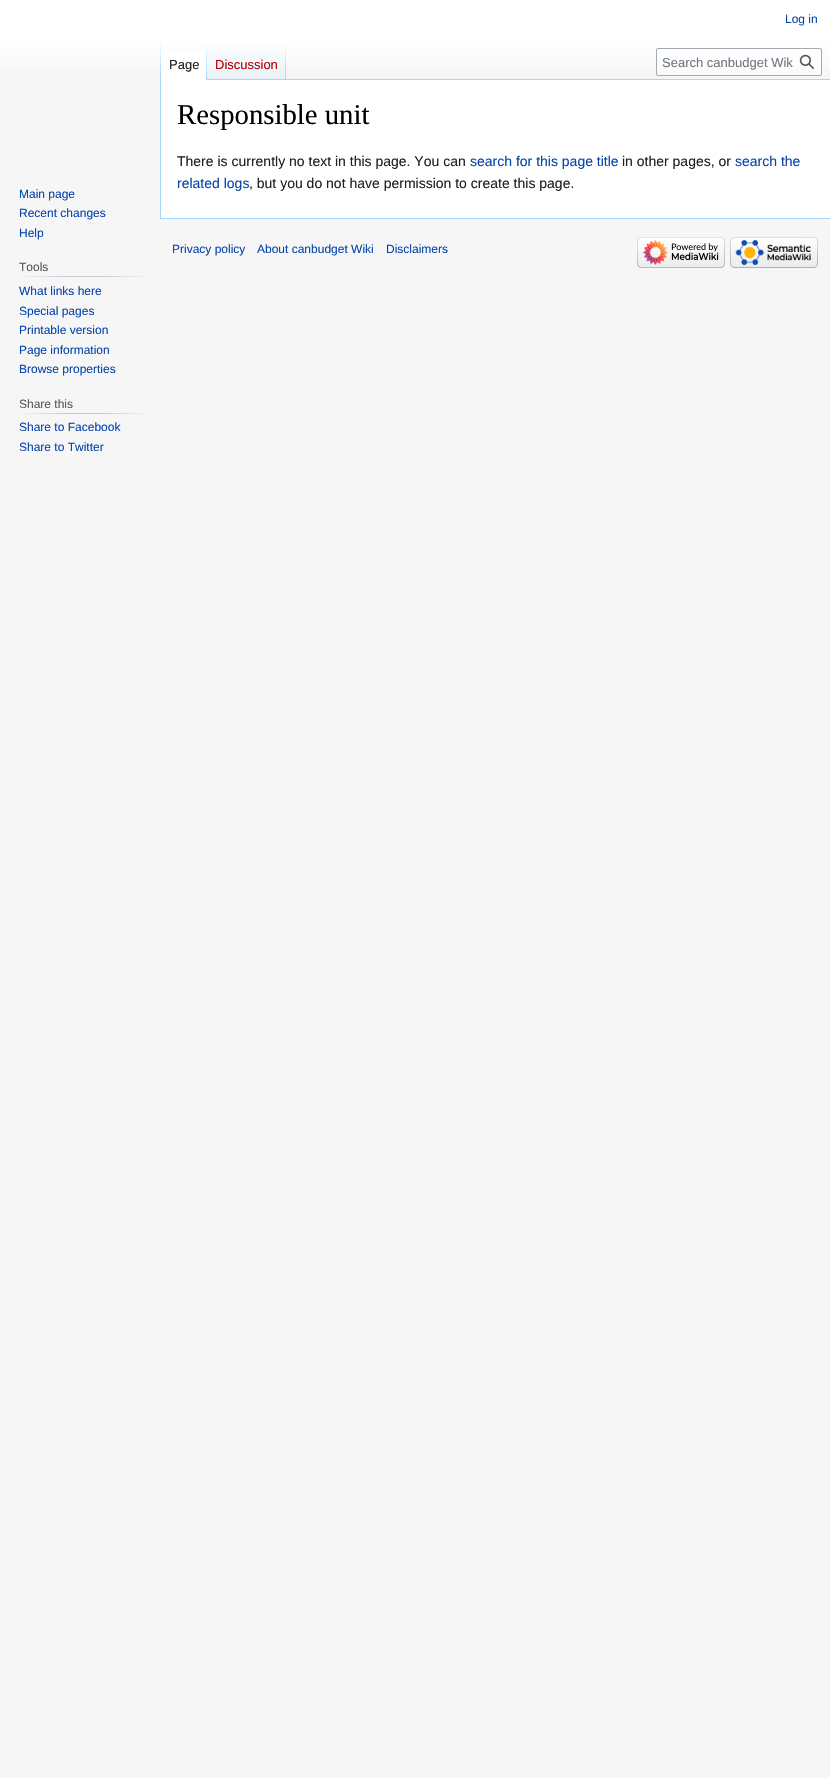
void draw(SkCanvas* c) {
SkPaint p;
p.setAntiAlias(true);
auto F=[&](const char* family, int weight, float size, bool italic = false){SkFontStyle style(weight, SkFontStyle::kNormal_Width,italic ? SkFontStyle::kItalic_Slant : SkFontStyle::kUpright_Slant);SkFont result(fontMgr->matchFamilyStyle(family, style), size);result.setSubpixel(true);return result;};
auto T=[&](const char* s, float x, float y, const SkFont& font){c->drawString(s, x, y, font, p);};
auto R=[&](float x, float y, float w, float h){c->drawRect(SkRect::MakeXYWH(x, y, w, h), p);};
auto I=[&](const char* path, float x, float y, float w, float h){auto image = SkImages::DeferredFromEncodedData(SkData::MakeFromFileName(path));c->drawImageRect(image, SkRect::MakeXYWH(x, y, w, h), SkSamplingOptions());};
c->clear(0xfff6f6f6);
{
const SkColor colors[] = {0xffffffff,0xfff6f6f6};
const float stops[] = {.5,1};
const SkPoint ends[] = {{415,0}, {415,80}};
p.setShader(SkGradientShader::MakeLinear(ends, colors, stops, 2, SkTileMode::kClamp));
p.setAlpha(255);
}
R(0,0,830,69);
auto f1 = F("Liberation Sans",400,12);
p.setShader(nullptr);
p.setColor(0xff0645ad);
T("Log in",785,23,f1);
p.setColor(0xffa7d7f9);
R(160,218,670,1);
R(160,79,1,140);
{
const SkColor colors[] = {0x00a7d7f9,0xffa7d7f9};
const float stops[] = {0,1};
const SkPoint ends[] = {{161,40}, {161,80}};
p.setShader(SkGradientShader::MakeLinear(ends, colors, stops, 2, SkTileMode::kClamp));
p.setAlpha(255);
}
R(160,40,1,40);
p.setShader(nullptr);
p.setColor(0xffffffff);
R(161,51,45,29);
{
const SkColor colors[] = {0xffffffff,0xffa7d7f9};
const float stops[] = {0,1};
const SkPoint ends[] = {{207,40}, {207,80}};
p.setShader(SkGradientShader::MakeLinear(ends, colors, stops, 2, SkTileMode::kClamp));
p.setAlpha(255);
}
R(206,40,1,40);
auto f2 = F("Liberation Sans",400,13);
p.setShader(nullptr);
p.setColor(0xff202122);
T("Page",169,69,f2);
{
const SkColor colors[] = {0xff77c1f6,0xffe8f2f8,0xffffffff};
const float stops[] = {0,.03,1};
const SkPoint ends[] = {{247,80}, {247,40}};
p.setShader(SkGradientShader::MakeLinear(ends, colors, stops, 3, SkTileMode::kClamp));
p.setAlpha(255);
}
R(207,46,79,34);
{
const SkColor colors[] = {0x00a7d7f9,0xffa7d7f9};
const float stops[] = {0,1};
const SkPoint ends[] = {{286,40}, {286,80}};
p.setShader(SkGradientShader::MakeLinear(ends, colors, stops, 2, SkTileMode::kClamp));
p.setAlpha(255);
}
R(285,40,1,40);
p.setShader(nullptr);
p.setColor(0xffba0000);
T("Discussion",215,69,f2);
p.setColor(0x80ffffff);
c->drawRoundRect(SkRect::MakeXYWH(656.5,48.5,165,27),1.5,1.5,p);
p.setStroke(true);
p.setStrokeWidth(1);
p.setColor(0xffa2a9b1);
c->drawRoundRect(SkRect::MakeXYWH(656.5,48.5,165,27),1.5,1.5,p);
p.setStroke(false);
p.setColor(0xff72777d);
T("Search canbudget Wik",662,67,f2);
I("1.png",799,54,15,15);
p.setColor(0xff0645ad);
T("Main page",19,198,f1);
T("Recent changes",19,217,f1);
T("Help",19,237,f1);
{
const SkColor colors[] = {0xfff6f6f6,0xffc8ccd1,0xffc8ccd1,0xfff6f6f6};
const float stops[] = {0,.33,.66,1};
const SkPoint ends[] = {{19,277}, {150,277}};
p.setShader(SkGradientShader::MakeLinear(ends, colors, stops, 4, SkTileMode::kClamp));
p.setAlpha(255);
}
R(19,276,131,1);
p.setShader(nullptr);
p.setColor(0xff54595d);
T("Tools",19,271,f1);
p.setColor(0xff0645ad);
T("What links here",19,295,f1);
T("Special pages",19,315,f1);
T("Printable version",19,334,f1);
T("Page information",19,354,f1);
T("Browse properties",19,373,f1);
{
const SkColor colors[] = {0xfff6f6f6,0xffc8ccd1,0xffc8ccd1,0xfff6f6f6};
const float stops[] = {0,.33,.66,1};
const SkPoint ends[] = {{19,414}, {150,414}};
p.setShader(SkGradientShader::MakeLinear(ends, colors, stops, 4, SkTileMode::kClamp));
p.setAlpha(255);
}
R(19,413,131,1);
p.setShader(nullptr);
p.setColor(0xff54595d);
T("Share this",19,408,f1);
p.setColor(0xff0645ad);
T("Share to Facebook",19,431,f1);
T("Share to Twitter",19,451,f1);
p.setColor(0xffffffff);
R(161,80,669,138);
p.setColor(0xffa7d7f9);
R(286,79,544,1);
auto f3 = F("Liberation Serif",400,28.75);
p.setColor(0xff000000);
T("Responsible unit",177,124,f3);
auto f4 = F("Liberation Sans",400,14);
p.setColor(0xff202122);
T("There is currently no text in this page. You can",177,166,f4);
p.setColor(0xff0645ad);
T("search for this page title",470,166,f4);
p.setColor(0xff202122);
T("in other pages, or",622,166,f4);
p.setColor(0xff0645ad);
T("search the",735,166,f4);
T("related logs",177,188,f4);
p.setColor(0xff202122);
T(", but you do not have permission to create this page.",249,188,f4);
p.setColor(0xff0645ad);
T("Privacy policy",172,253,f1);
T("About canbudget Wiki",257,253,f1);
T("Disclaimers",386,253,f1);
I("2.png",637,237,88,31);
I("3.png",730,237,88,31);
}
